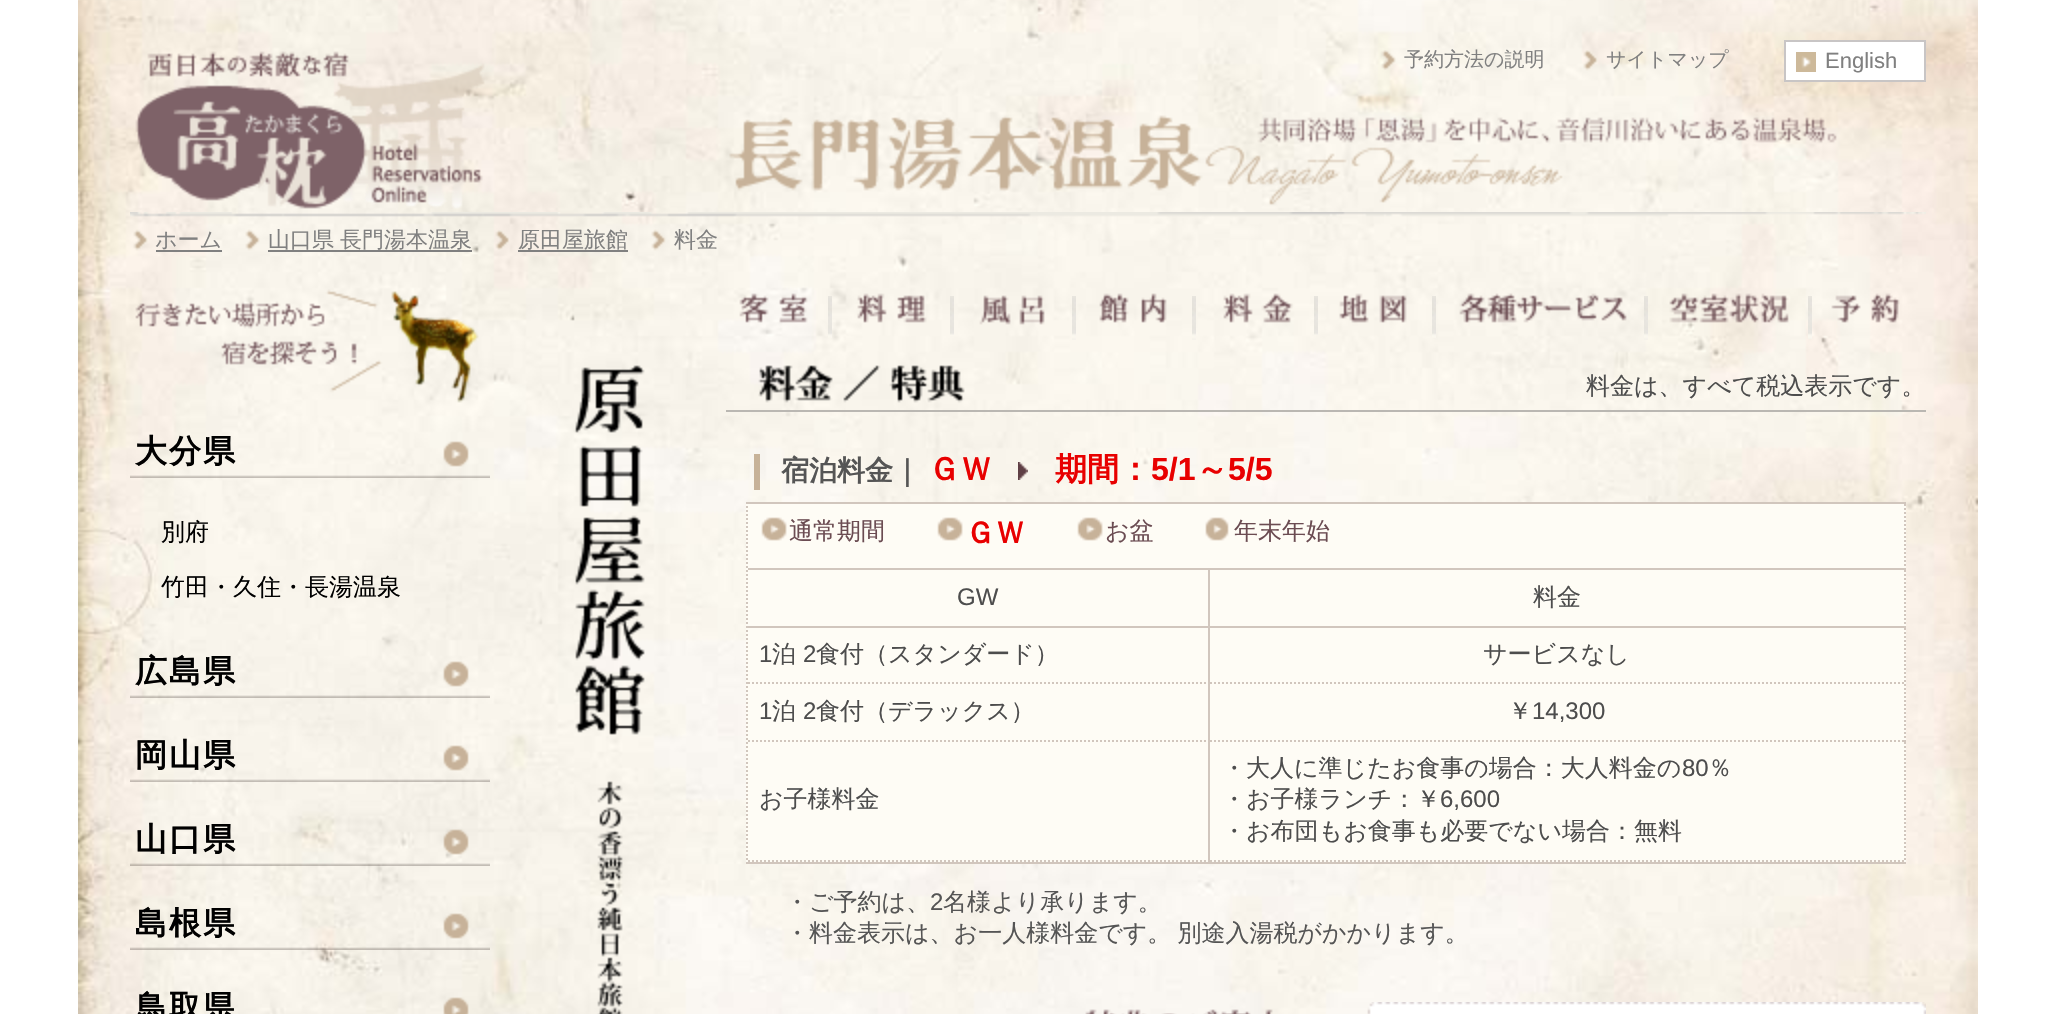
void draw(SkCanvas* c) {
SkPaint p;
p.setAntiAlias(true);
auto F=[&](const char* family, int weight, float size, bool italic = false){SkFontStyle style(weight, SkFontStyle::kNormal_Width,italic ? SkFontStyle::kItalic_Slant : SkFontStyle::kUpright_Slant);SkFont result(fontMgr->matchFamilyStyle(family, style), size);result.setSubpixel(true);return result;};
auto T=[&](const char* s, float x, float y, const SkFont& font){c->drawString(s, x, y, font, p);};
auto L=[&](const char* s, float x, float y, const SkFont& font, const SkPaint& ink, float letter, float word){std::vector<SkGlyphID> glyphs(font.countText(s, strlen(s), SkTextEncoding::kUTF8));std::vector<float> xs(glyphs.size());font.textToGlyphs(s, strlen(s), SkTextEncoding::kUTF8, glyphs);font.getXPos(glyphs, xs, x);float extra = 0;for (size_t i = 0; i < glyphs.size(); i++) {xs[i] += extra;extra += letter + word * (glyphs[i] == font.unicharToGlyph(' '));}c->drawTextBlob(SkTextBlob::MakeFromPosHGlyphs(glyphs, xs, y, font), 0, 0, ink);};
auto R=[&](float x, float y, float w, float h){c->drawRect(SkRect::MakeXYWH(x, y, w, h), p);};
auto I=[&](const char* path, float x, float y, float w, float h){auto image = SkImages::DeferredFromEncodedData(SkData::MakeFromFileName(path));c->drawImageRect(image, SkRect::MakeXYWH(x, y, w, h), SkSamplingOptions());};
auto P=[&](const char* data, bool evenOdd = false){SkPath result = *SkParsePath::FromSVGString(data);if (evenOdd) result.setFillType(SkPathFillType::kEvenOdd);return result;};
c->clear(0xffffffff);
I("1.png",78,0,1900,1014);
I("2.png",135,51,350,158);
I("3.png",1381,50,15,20);
auto f1 = F("WenQuanYi Zen Hei",500,20);
p.setColor(0xff808080);
T("予約方法の説明",1404,66,f1);
I("4.png",1583,50,15,21);
T("サイトマップ",1606,66,f1);
p.setColor(0xffffffff);
R(1786,42,138,38);
I("5.png",1796,52,20,20);
p.setStroke(true);
p.setStrokeWidth(2);
p.setColor(0xffc8c5c5);
c->drawRect(SkRect::MakeXYWH(1785,41,140,40),p);
auto f2 = F("Liberation Sans",400,22);
p.setStroke(false);
p.setColor(0xff808080);
T("English",1825,68,f2);
I("6.png",729,115,1108,90);
I("7.png",130,212,1796,5);
I("8.png",133,229,15,22);
auto f3 = F("WenQuanYi Zen Hei",500,22);
T("ホーム",155,247,f3);
R(156,250,66,2);
I("9.png",245,229,15,22);
T("山口県",268,247,f3);
R(268,250,204,2);
T("長門湯本温泉",340,247,f3);
I("10.png",495,230,14,20);
T("原田屋旅館",518,247,f3);
R(518,250,110,2);
I("11.png",651,229,15,22);
T("料金",674,247,f3);
I("12.png",135,289,344,114);
I("13.png",130,441,360,37);
auto f4 = F("WenQuanYi Zen Hei",700,32);
p.setColor(0xff000000);
L("大分県",135,462,f4,p,2,0);
auto f5 = F("WenQuanYi Zen Hei",500,24);
T("別府",161,540,f5);
T("竹田・久住・長湯温泉",161,595,f5);
I("14.png",130,661,360,37);
L("広島県",135,682,f4,p,2,0);
I("15.png",130,745,360,37);
L("岡山県",135,766,f4,p,2,0);
I("16.png",130,829,360,37);
L("山口県",135,850,f4,p,2,0);
I("17.png",130,913,360,37);
L("島根県",135,934,f4,p,2,0);
I("18.png",443,997,26,17);
L("鳥取県",135,1018,f4,p,2,0);
I("19.png",739,293,69,30);
I("20.png",828,296,4,42);
I("21.png",857,293,70,30);
I("22.png",950,296,4,39);
I("23.png",979,295,66,30);
I("24.png",1072,296,4,44);
I("25.png",1099,293,68,30);
I("24.png",1192,296,4,44);
I("26.png",1223,293,70,30);
I("22.png",1314,296,4,39);
I("27.png",1339,293,68,30);
I("20.png",1432,296,4,42);
I("28.png",1459,293,168,30);
I("24.png",1644,296,4,44);
I("29.png",1669,293,120,30);
I("30.png",1808,296,4,43);
I("31.png",1831,293,69,30);
I("32.png",575,365,70,649);
p.setColor(0xffbab7b2);
R(726,410,1200,2);
I("33.png",758,365,207,38);
p.setColor(0xff4d4d4d);
T("料金は、すべて税込表示です。",1586,394,f5);
p.setColor(0xffc7b299);
R(754,454,6,36);
auto f6 = F("WenQuanYi Zen Hei",700,28);
p.setColor(0xff555555);
T("宿泊料金｜",781,480,f6);
p.setColor(0xffe80000);
T("ＧＷ",928,480,f4);
I("34.png",1018,462,10,18);
T("期間：",1055,480,f4);
auto f7 = F("Liberation Sans",700,32);
T("5/1",1151,480,f7);
T("～",1196,480,f4);
T("5/5",1228,480,f7);
p.setColor(0xfffefcf5);
R(746,504,1160,358);
p.setColor(0xffd1c6bd);
R(746,502,1160,2);
R(746,862,1160,2);
p.setStroke(true);
p.setPathEffect(SkDashPathEffect::Make({{2,2}}, 0));
c->drawPath(P("M747 502v362"),p);
p.setPathEffect(nullptr);
p.setPathEffect(SkDashPathEffect::Make({{2,2}}, 0));
c->drawPath(P("M1905 504v66"),p);
p.setPathEffect(nullptr);
p.setStroke(false);
R(748,568,1158,2);
I("35.png",761,517,26,24);
p.setColor(0xff6b4c52);
T("通常期間",789,539,f5);
I("35.png",937,517,26,24);
auto f8 = F("WenQuanYi Zen Hei",700,30);
p.setColor(0xffe80000);
T("ＧＷ",965,543,f8);
I("36.png",1077,517,26,24);
p.setColor(0xff6b4c52);
T("お盆",1105,539,f5);
I("37.png",1205,517,24,24);
T("年末年始",1234,539,f5);
p.setColor(0xffd1c6bd);
R(1208,570,2,292);
R(748,626,462,2);
auto f9 = F("Liberation Sans",400,24);
p.setColor(0xff4d4d4d);
T("GW",957,605,f9);
p.setStroke(true);
p.setColor(0xffd1c6bd);
p.setPathEffect(SkDashPathEffect::Make({{2,2}}, 0));
c->drawPath(P("M1905 570v58"),p);
p.setPathEffect(nullptr);
p.setStroke(false);
R(1210,626,696,2);
p.setColor(0xff4d4d4d);
T("料金",1533,605,f5);
p.setStroke(true);
p.setColor(0xffd1c6bd);
p.setPathEffect(SkDashPathEffect::Make({{2,2}}, 0));
c->drawPath(P("M748 683h462"),p);
p.setPathEffect(nullptr);
p.setStroke(false);
p.setColor(0xff4d4d4d);
T("1",759,662,f9);
T("泊",772,662,f5);
T("2",803,662,f9);
T("食付（スタンダード）",816,662,f5);
p.setStroke(true);
p.setColor(0xffd1c6bd);
p.setPathEffect(SkDashPathEffect::Make({{2,2}}, 0));
c->drawPath(P("M1905 628v56"),p);
p.setPathEffect(nullptr);
p.setPathEffect(SkDashPathEffect::Make({{2,2}}, 0));
c->drawPath(P("M1210 683h696"),p);
p.setPathEffect(nullptr);
p.setStroke(false);
p.setColor(0xff4d4d4d);
T("サービスなし",1483,662,f5);
p.setStroke(true);
p.setColor(0xffd1c6bd);
p.setPathEffect(SkDashPathEffect::Make({{2,2}}, 0));
c->drawPath(P("M748 741h462"),p);
p.setPathEffect(nullptr);
p.setStroke(false);
p.setColor(0xff4d4d4d);
T("1",759,719,f9);
T("泊",772,719,f5);
T("2",803,719,f9);
T("食付（デラックス）",816,719,f5);
p.setStroke(true);
p.setColor(0xffd1c6bd);
p.setPathEffect(SkDashPathEffect::Make({{2,2}}, 0));
c->drawPath(P("M1905 684v58"),p);
p.setPathEffect(nullptr);
p.setPathEffect(SkDashPathEffect::Make({{2,2}}, 0));
c->drawPath(P("M1210 741h696"),p);
p.setPathEffect(nullptr);
p.setStroke(false);
p.setColor(0xff4d4d4d);
T("￥",1508,719,f5);
T("14,300",1532,719,f9);
p.setStroke(true);
p.setColor(0xffd1c6bd);
p.setPathEffect(SkDashPathEffect::Make({{2,2}}, 0));
c->drawPath(P("M748 861h462"),p);
p.setPathEffect(nullptr);
p.setStroke(false);
p.setColor(0xff4d4d4d);
T("お子様料金",759,807,f5);
p.setStroke(true);
p.setColor(0xffd1c6bd);
p.setPathEffect(SkDashPathEffect::Make({{2,2}}, 0));
c->drawPath(P("M1905 742v120"),p);
p.setPathEffect(nullptr);
p.setPathEffect(SkDashPathEffect::Make({{2,2}}, 0));
c->drawPath(P("M1210 861h696"),p);
p.setPathEffect(nullptr);
p.setStroke(false);
p.setColor(0xff4d4d4d);
T("・大人に準じたお食事の場合：大人料金の",1222,776,f5);
T("80",1682,776,f9);
T("％",1708,776,f5);
T("・お子様ランチ：￥",1222,807,f5);
T("6,600",1440,807,f9);
T("・お布団もお食事も必要でない場合：無料",1222,839,f5);
p.setColor(0xff555555);
T("・ご予約は、",785,910,f5);
T("2",930,910,f9);
T("名様より承ります。",943,910,f5);
L("・料金表示は、お一人様料金です。 別途入湯税がかかります。",785,941,f5,p,0,-1);
I("38.png",1085,1009,188,5);
I("39.png",1367,1002,559,12);
}
